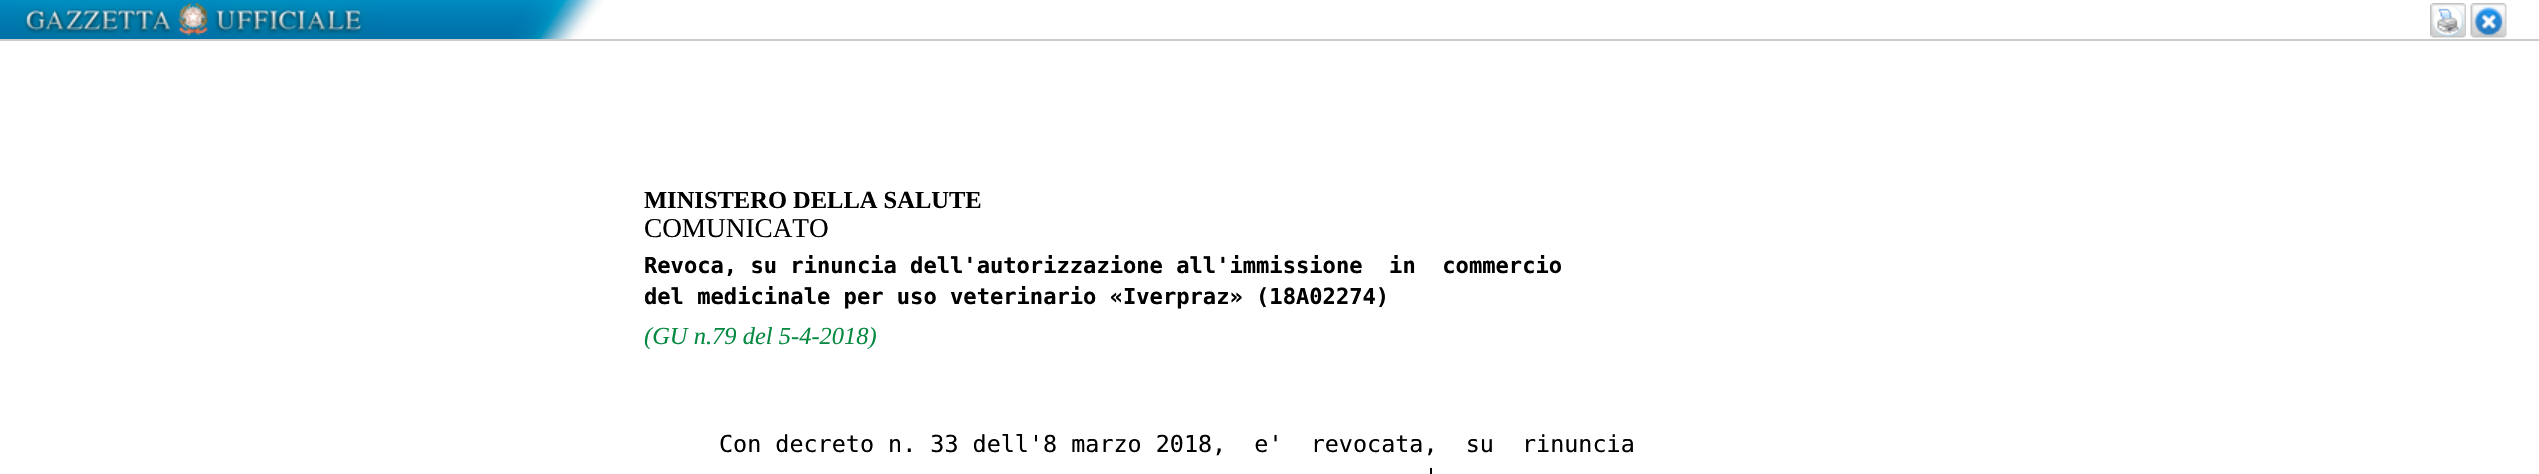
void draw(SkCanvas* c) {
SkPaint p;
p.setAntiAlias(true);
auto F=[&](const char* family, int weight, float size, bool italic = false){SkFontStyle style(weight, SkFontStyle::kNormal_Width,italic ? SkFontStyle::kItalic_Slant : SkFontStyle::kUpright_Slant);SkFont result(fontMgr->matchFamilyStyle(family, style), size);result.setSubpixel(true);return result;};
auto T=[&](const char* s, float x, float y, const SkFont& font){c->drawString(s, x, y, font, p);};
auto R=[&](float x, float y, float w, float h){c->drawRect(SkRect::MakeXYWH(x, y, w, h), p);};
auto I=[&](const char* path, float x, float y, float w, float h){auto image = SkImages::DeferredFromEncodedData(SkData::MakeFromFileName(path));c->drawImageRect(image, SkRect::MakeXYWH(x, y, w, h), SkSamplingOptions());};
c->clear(0xffffffff);
I("1.png",0,0,603,39);
p.setColor(0xffcccccc);
R(0,39,2539,2);
I("2.png",2430,3,36,35);
I("3.png",2470,3,37,35);
auto f1 = F("Liberation Serif",700,24.5);
p.setColor(0xff000000);
T("MINISTERO DELLA SALUTE",644,208,f1);
auto f2 = F("Liberation Serif",400,27.25);
T("COMUNICATO",644,237,f2);
auto f3 = F("DejaVu Sans Mono",700,22.1);
T("Revoca, su rinuncia dell'autorizzazione all'immissione  in  commercio",644,273,f3);
T("del medicinale per uso veterinario «Iverpraz» (18A02274)",644,304,f3);
auto f4 = F("Liberation Serif",400,24.5,true);
p.setColor(0xff058940);
T("(GU n.79 del 5-4-2018)",644,344,f4);
auto f5 = F("DejaVu Sans Mono",400,23.4);
p.setColor(0xff000000);
T("Con decreto n. 33 dell'8 marzo 2018,  e'  revocata,  su  rinuncia",719,452,f5);
T("'",1424,485,f5);
}
